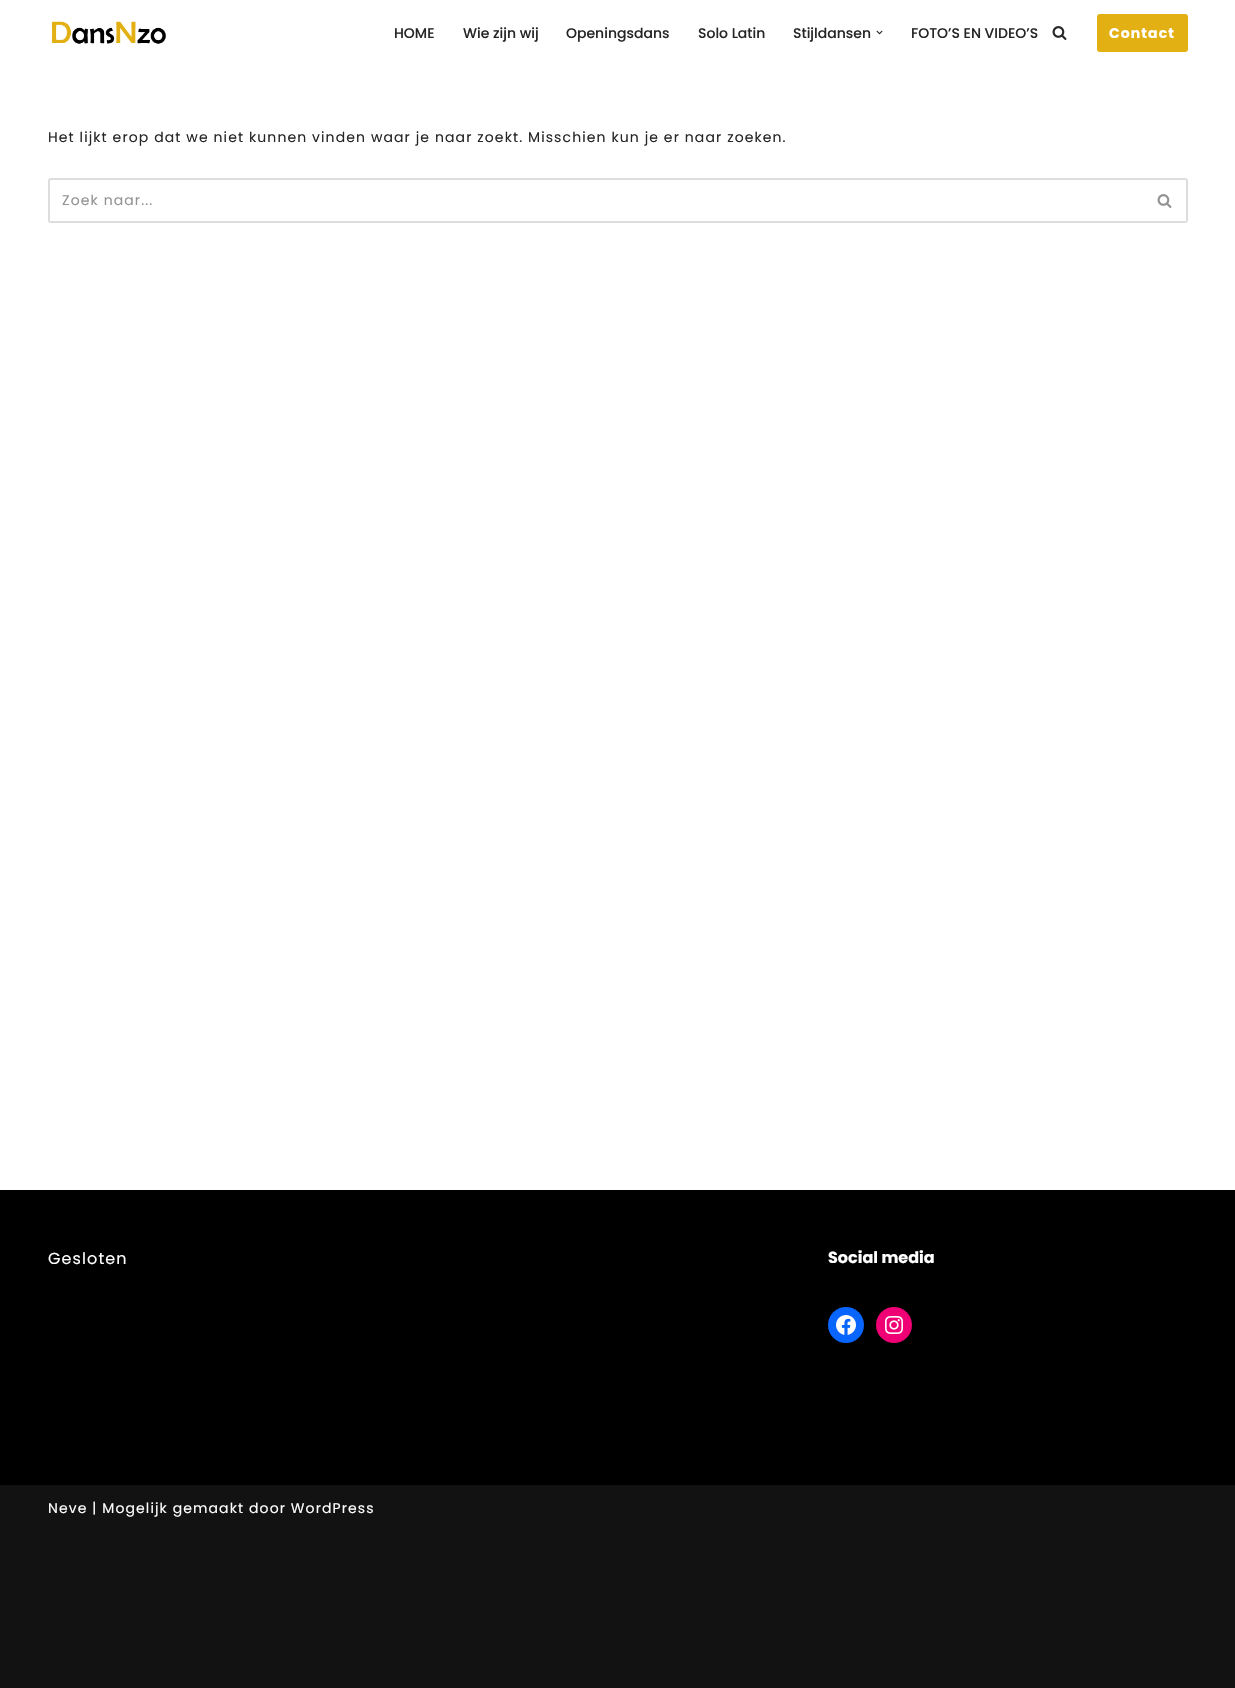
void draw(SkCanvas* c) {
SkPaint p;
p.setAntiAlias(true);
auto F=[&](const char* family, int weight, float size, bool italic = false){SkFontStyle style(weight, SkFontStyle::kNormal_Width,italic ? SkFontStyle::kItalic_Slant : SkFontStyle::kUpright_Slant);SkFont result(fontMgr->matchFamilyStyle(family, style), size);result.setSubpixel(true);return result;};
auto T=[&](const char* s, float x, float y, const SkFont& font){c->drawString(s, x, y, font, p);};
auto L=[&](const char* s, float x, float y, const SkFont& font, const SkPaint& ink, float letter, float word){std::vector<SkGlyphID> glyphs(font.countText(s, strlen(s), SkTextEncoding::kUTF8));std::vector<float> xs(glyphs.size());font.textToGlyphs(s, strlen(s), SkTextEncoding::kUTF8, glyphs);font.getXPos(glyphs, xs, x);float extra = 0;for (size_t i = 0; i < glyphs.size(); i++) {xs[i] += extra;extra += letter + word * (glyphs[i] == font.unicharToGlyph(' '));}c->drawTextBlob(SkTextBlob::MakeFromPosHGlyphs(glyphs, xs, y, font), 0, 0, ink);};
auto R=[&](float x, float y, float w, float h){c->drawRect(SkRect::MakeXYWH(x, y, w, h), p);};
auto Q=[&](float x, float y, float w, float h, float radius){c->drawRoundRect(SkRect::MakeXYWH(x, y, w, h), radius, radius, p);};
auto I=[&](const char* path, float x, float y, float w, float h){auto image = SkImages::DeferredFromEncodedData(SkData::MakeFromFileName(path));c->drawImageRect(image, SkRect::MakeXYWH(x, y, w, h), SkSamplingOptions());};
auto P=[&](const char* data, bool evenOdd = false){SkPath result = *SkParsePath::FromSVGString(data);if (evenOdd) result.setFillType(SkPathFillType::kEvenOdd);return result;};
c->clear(0xffffffff);
I("1.png",51,21,115,23);
auto f1 = F("Poppins",500,14);
p.setColor(0xff272626);
T("HOME",394,38,f1);
T("Wie zijn wij",463,38,f1);
T("Openingsdans",566,38,f1);
T("Solo Latin",698,38,f1);
T("Stijldansen",793,38,f1);
I("2.png",876,30,7,5);
T("FOTO’S EN VIDEO’S",911,38,f1);
I("3.png",1052,26,15,14);
p.setColor(0xffe3b014);
Q(1097,14,91,38,3);
auto f2 = F("Poppins",700,14);
p.setColor(0xffffffff);
L("Contact",1109,38,f2,p,1.1,0);
auto f3 = F("Poppins",400,14);
p.setColor(0xff272626);
L("Het lijkt erop dat we niet kunnen vinden waar je naar zoekt. Misschien kun je er naar zoeken.",48,142,f3,p,1.1,0);
p.setColor(0xffdddddd);
c->drawPath(P("M51 178h1092v45h-1092c-2 0-3-1-3-3v-39c0-2 1-3 3-3zm0 2h1092v41h-1092c-1 0-1 0-1-1v-39c0-1 0-1 1-1z",true),p);
p.setColor(0xff939393);
L("Zoek naar...",62,205,f3,p,1.1,0);
p.setColor(0xffdddddd);
c->drawPath(P("M1143 178h42c2 0 3 1 3 3v39c0 2-1 3-3 3h-42zm0 2h42c1 0 1 0 1 1v39c0 1 0 1-1 1h-42z",true),p);
I("4.png",1157,194,15,14);
p.setColor(0xff000000);
R(0,1190,1235,295);
auto f4 = F("Poppins",400,16);
p.setColor(0xffffffff);
L("Gesloten",48,1264,f4,p,1.1,0);
auto f5 = F("Poppins",700,16);
T("Social media",828,1263,f5);
p.setColor(0xff0866ff);
c->drawCircle(846,1325,18,p);
I("5.png",836,1315,20,20);
p.setColor(0xfff00075);
c->drawCircle(894,1325,18,p);
I("6.png",885,1316,18,18);
p.setColor(0xff121212);
R(0,1485,1235,203);
p.setColor(0xffffffff);
L("Neve | Mogelijk gemaakt door WordPress",48,1513,f3,p,1.1,0);
}
